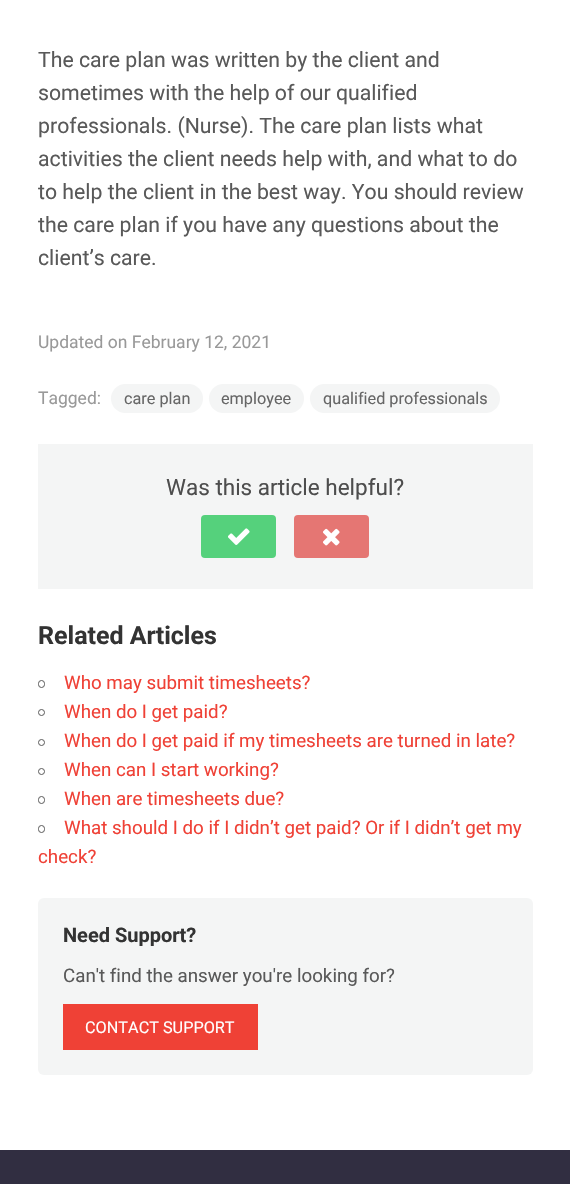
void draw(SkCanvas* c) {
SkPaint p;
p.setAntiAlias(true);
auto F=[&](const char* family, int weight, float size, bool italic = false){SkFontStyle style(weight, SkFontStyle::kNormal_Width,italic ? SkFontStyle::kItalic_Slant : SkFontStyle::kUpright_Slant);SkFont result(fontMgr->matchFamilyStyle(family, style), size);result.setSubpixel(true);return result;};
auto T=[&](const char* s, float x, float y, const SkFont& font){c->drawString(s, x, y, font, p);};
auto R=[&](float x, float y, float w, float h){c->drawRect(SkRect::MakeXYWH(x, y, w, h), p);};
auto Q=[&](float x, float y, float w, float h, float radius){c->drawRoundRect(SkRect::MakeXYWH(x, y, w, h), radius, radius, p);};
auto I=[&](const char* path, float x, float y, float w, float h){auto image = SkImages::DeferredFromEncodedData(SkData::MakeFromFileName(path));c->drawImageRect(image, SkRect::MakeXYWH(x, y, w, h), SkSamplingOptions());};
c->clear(0xffffffff);
auto f1 = F("Roboto",400,21.25);
p.setColor(0xff595959);
T("The care plan was written by the client and",38,67,f1);
T("sometimes with the help of our qualified",38,100,f1);
T("professionals. (Nurse). The care plan lists what",38,133,f1);
T("activities the client needs help with, and what to do",38,166,f1);
T("to help the client in the best way. You should review",38,199,f1);
T("the care plan if you have any questions about the",38,232,f1);
T("client’s care.",38,265,f1);
auto f2 = F("Roboto",400,17.5);
p.setColor(0xff999999);
T("Updated on February 12, 2021",38,348,f2);
T("Tagged:",38,404,f2);
p.setColor(0xfff4f5f5);
Q(111,384,92,29,14.5);
auto f3 = F("Roboto",400,16.25);
p.setColor(0xff666666);
T("care plan",124,404,f3);
p.setColor(0xfff4f5f5);
Q(209,384,95,29,14.5);
p.setColor(0xff666666);
T("employee",221,404,f3);
p.setColor(0xfff4f5f5);
Q(310,384,190,29,14.5);
p.setColor(0xff666666);
T("qualified professionals",323,404,f3);
p.setColor(0xfff4f5f5);
R(38,444,495,145);
auto f4 = F("Roboto",400,22.5);
p.setColor(0xff4d4d4d);
T("Was this article helpful?",166,495,f4);
p.setColor(0xff55d17c);
Q(201,515,75,43,4);
I("1.png",228,528,22,17);
p.setColor(0xffe57673);
Q(294,515,75,43,4);
I("2.png",323,528,17,18);
auto f5 = F("Roboto",700,25);
p.setColor(0xff333333);
T("Related Articles",38,644,f5);
p.setStroke(true);
p.setStrokeWidth(1);
p.setColor(0xff595959);
c->drawRoundRect(SkRect::MakeXYWH(38.5,680.5,6,7),3,3,p);
auto f6 = F("Roboto",400,18.75);
p.setStroke(false);
p.setColor(0xffef4136);
T("Who may submit timesheets?",64,689,f6);
p.setStroke(true);
p.setColor(0xff595959);
c->drawCircle(41.5,712.5,3,p);
p.setStroke(false);
p.setColor(0xffef4136);
T("When do I get paid?",64,718,f6);
p.setStroke(true);
p.setColor(0xff595959);
c->drawCircle(41.5,742.5,3,p);
p.setStroke(false);
p.setColor(0xffef4136);
T("When do I get paid if my timesheets are turned in late?",64,747,f6);
p.setStroke(true);
p.setColor(0xff595959);
c->drawCircle(41.5,771.5,3,p);
p.setStroke(false);
p.setColor(0xffef4136);
T("When can I start working?",64,776,f6);
p.setStroke(true);
p.setColor(0xff595959);
c->drawRoundRect(SkRect::MakeXYWH(38.5,796.5,6,7),3,3,p);
p.setStroke(false);
p.setColor(0xffef4136);
T("When are timesheets due?",64,805,f6);
p.setStroke(true);
p.setColor(0xff595959);
c->drawRoundRect(SkRect::MakeXYWH(38.5,825.5,6,7),3,3,p);
p.setStroke(false);
p.setColor(0xffef4136);
T("What should I do if I didn’t get paid? Or if I didn’t get my",64,834,f6);
T("check?",38,863,f6);
p.setColor(0xfff4f5f5);
Q(38,898,495,177,6);
auto f7 = F("Roboto",700,20);
p.setColor(0xff333333);
T("Need Support?",63,942,f7);
p.setColor(0xff595959);
T("Can't find the answer you're looking for?",63,982,f6);
p.setColor(0xffef4136);
R(63,1004,195,46);
p.setColor(0xffffffff);
T("CONTACT SUPPORT",85,1033,f3);
p.setColor(0xff312e41);
R(0,1150,570,34);
}
